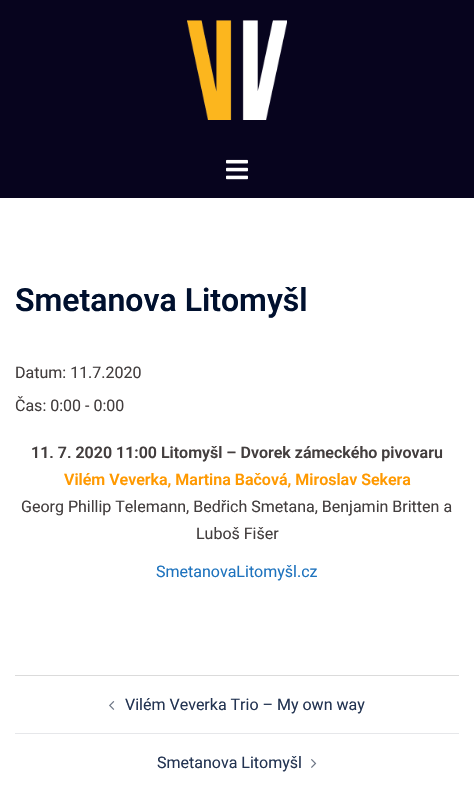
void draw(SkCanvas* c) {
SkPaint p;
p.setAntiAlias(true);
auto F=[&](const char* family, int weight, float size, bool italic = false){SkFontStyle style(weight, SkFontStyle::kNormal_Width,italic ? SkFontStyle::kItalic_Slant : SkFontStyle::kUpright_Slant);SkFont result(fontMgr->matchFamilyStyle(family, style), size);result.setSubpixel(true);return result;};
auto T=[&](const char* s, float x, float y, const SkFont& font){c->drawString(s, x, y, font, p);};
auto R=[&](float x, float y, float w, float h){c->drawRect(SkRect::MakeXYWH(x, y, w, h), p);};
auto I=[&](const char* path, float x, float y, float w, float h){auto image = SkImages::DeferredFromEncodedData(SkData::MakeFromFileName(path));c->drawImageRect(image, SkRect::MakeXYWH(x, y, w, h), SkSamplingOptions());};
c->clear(0xffffffff);
p.setColor(0xff07041e);
R(0,0,474,198);
I("1.png",187,20,100,100);
I("2.png",226,159,22,21);
auto f1 = F("Roboto",600,32);
p.setColor(0xff00102e);
T("Smetanova Litomyšl",15,311,f1);
auto f2 = F("Roboto",400,16);
p.setColor(0xff433e3e);
T("Datum: 11.7.2020",15,378,f2);
T("Čas: 0:00 - 0:00",15,411,f2);
auto f3 = F("Roboto",600,16);
T("11. 7. 2020 11:00 Litomyšl – Dvorek zámeckého pivovaru",31,458,f3);
p.setColor(0xffff9900);
T("Vilém Veverka, Martina Bačová, Miroslav Sekera",64,485,f3);
p.setColor(0xff433e3e);
T("Georg Phillip Telemann, Bedřich Smetana, Benjamin Britten a",21,512,f2);
T("Luboš Fišer",196,539,f2);
p.setColor(0xff1e73be);
T("SmetanovaLitomyšl.cz",156,577,f2);
p.setColor(0xffdbdbdb);
R(15,675,444,1);
p.setColor(0xffe6e7ea);
R(15,733,444,1);
I("3.png",109,701,6,9);
p.setColor(0xff233452);
T("Vilém Veverka Trio – My own way",125,710,f2);
T("Smetanova Litomyšl",157,768,f2);
I("4.png",311,759,6,9);
}
